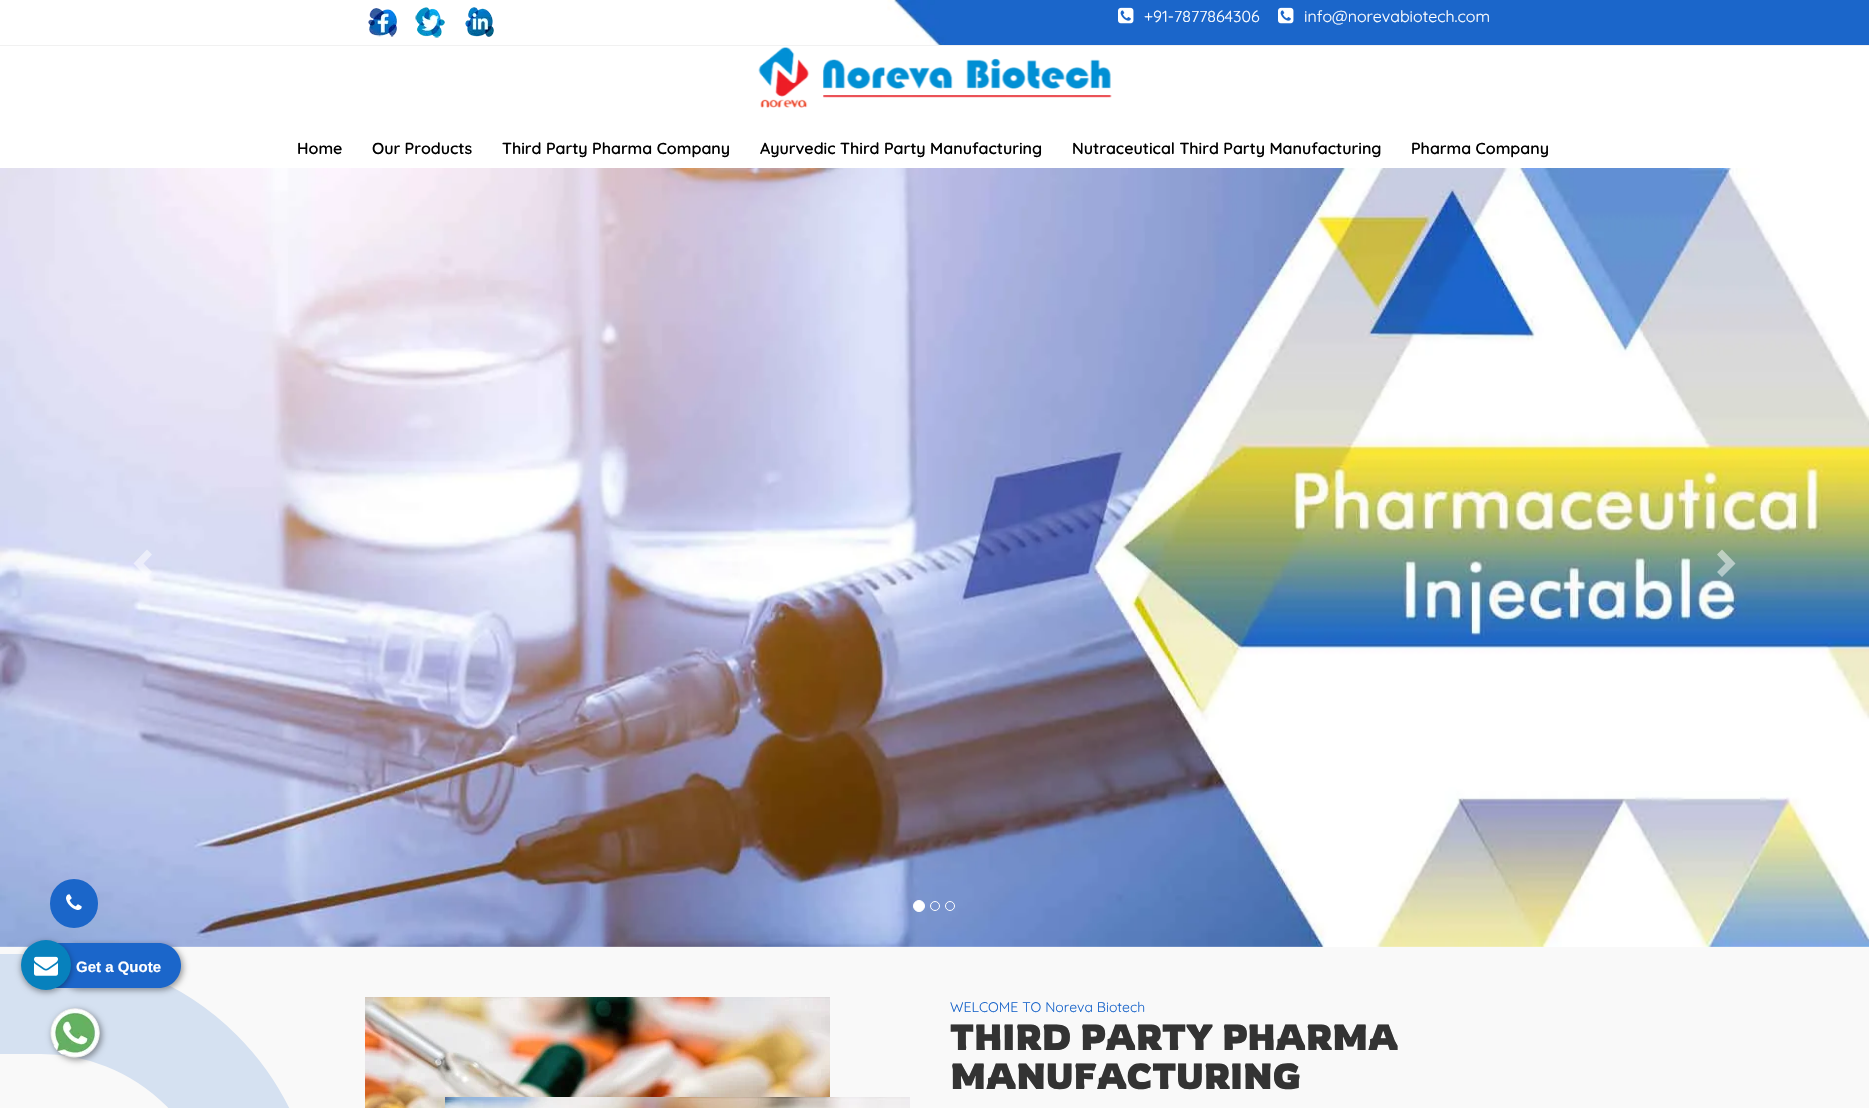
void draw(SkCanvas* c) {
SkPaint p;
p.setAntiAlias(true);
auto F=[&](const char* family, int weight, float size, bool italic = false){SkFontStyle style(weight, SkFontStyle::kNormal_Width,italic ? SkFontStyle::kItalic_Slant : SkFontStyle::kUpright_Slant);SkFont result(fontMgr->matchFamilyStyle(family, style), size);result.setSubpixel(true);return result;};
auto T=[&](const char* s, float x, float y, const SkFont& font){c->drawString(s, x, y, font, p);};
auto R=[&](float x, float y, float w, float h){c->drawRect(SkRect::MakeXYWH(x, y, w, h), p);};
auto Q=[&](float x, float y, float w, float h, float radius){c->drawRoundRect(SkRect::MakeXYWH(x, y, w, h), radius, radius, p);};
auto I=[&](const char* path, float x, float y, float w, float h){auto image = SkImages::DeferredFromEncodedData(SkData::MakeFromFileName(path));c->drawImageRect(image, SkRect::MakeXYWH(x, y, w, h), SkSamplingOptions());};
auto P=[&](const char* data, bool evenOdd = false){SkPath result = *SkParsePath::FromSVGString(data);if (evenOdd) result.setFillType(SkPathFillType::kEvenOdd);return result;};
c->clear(0xffffffff);
I("1.png",887,0,982,45);
p.setColor(0xfff1f1f1);
R(0,45,1869,1);
I("2.png",368,8,29,29);
I("3.png",415,7,30,31);
I("4.png",465,7,29,30);
I("5.png",1118,7,16,17);
auto f1 = F("Quicksand",400,16);
p.setColor(0xffffffff);
T("+91-7877864306",1144,22,f1);
I("5.png",1278,7,16,17);
T("info@norevabiotech.com",1304,22,f1);
I("6.png",758,47,354,61);
auto f2 = F("Quicksand",600,16);
p.setColor(0xff000000);
T("Home",297,154,f2);
T("Our Products",372,154,f2);
T("Third Party Pharma Company",502,154,f2);
T("Ayurvedic Third Party Manufacturing",760,154,f2);
T("Nutraceutical Third Party Manufacturing",1072,154,f2);
T("Pharma Company",1411,154,f2);
I("7.png",0,168,1869,779);
p.setColor(0x80ffffff);
c->drawPath(P("M152 554.5l-8.5 9l8.5 8.5l-5 5l-13.5-13.5l13.5-14z"),p);
c->drawPath(P("M1735.5 563.5l-13.5 13.5l-5-5l8.5-8.5l-8.5-9l5-5z"),p);
p.setColor(0xffffffff);
c->drawCircle(919,906,5.5,p);
p.setStroke(true);
p.setStrokeWidth(1);
c->drawCircle(919,906,5.5,p);
c->drawCircle(935,906,4.5,p);
c->drawCircle(950,906,4.5,p);
p.setStroke(false);
p.setColor(0xff1b66c9);
Q(50,879,48,49,24);
I("8.png",66,894,16,16);
p.setColor(0xfff9f9f9);
R(0,947,1869,161);
p.setStroke(true);
p.setStrokeWidth(100);
p.setColor(0xffd5e1f1);
c->drawRoundRect(SkRect::MakeXYWH(-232,1004,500,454),250,250,p);
p.setStroke(false);
p.setColor(0x66000000);
p.setMaskFilter(SkMaskFilter::MakeBlur(kNormal_SkBlurStyle, 3));
c->drawRoundRect(SkRect::MakeXYWH(58,945,125,45),22.5,22.5,p);
p.setMaskFilter(nullptr);
p.setColor(0xff1b66ca);
c->drawPath(P("M56 943h102.5c12.5 0 22.5 10 22.5 22.5c0 12.5-10 22.5-22.5 22.5h-102.5z"),p);
p.setColor(0x66000000);
p.setMaskFilter(SkMaskFilter::MakeBlur(kNormal_SkBlurStyle, 3));
c->drawRoundRect(SkRect::MakeXYWH(21,942,50,50),25,25,p);
p.setMaskFilter(nullptr);
p.setColor(0xff0781bd);
c->drawCircle(46,965,25,p);
I("9.png",34,956,24,20);
auto f3 = F("Liberation Sans",700,15);
p.setColor(0xffffffff);
T("Get a Quote",76,972,f3);
p.setColor(0x66000000);
p.setMaskFilter(SkMaskFilter::MakeBlur(kNormal_SkBlurStyle, 3));
c->drawRoundRect(SkRect::MakeXYWH(52,1010,50,50),25,25,p);
p.setMaskFilter(nullptr);
I("10.png",50,1008,50,50);
I("11.png",365,997,465,111);
I("12.png",445,1097,465,11);
auto f4 = F("Quicksand",400,14);
p.setColor(0xff1b66ca);
T("WELCOME TO Noreva Biotech",950,1012,f4);
auto f5 = F("Rowdies",700,36);
p.setColor(0xff333333);
T("THIRD PARTY PHARMA",950,1050,f5);
T("MANUFACTURING",950,1089,f5);
}
